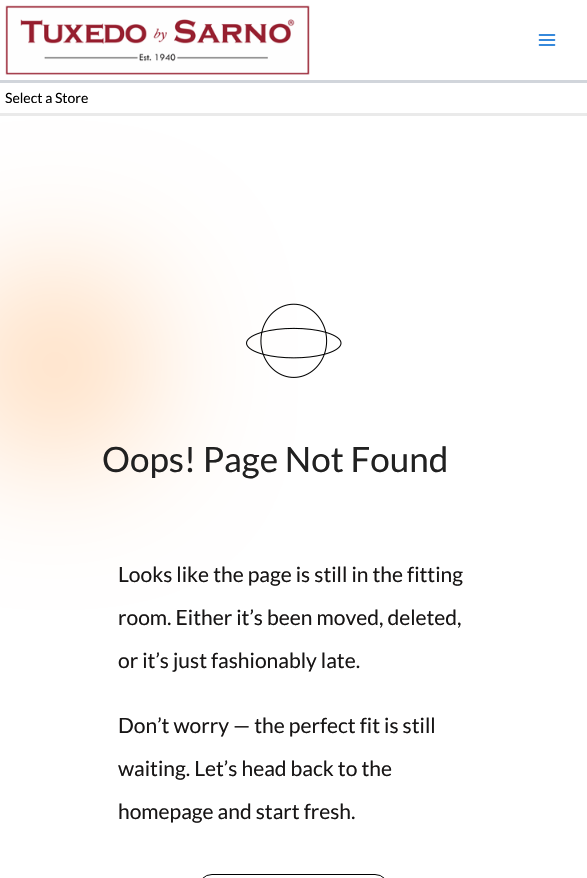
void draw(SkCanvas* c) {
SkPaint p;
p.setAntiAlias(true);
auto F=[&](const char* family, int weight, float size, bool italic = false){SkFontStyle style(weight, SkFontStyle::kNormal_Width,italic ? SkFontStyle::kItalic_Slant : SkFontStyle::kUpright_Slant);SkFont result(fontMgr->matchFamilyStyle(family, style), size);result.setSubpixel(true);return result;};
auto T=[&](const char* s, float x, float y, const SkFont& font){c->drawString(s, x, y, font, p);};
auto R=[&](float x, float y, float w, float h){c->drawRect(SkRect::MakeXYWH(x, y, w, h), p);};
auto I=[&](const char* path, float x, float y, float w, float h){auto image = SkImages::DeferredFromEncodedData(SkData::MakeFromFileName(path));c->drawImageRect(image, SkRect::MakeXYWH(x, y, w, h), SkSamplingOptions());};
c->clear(0xffffffff);
p.setColor(0xffffd6b0);
p.setMaskFilter(SkMaskFilter::MakeBlur(kNormal_SkBlurStyle, 69));
c->drawRoundRect(SkRect::MakeXYWH(-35,275,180,180),90,90,p);
p.setMaskFilter(nullptr);
p.setColor(0xffd1d5db);
R(0,80,587,3);
I("1.png",5,5,305,70);
I("2.png",538,34,18,12);
p.setColor(0xffeaeaea);
R(0,113,587,3);
auto f1 = F("Lato",400,14);
p.setColor(0xff000000);
T("Select a Store",5,103,f1);
I("3.png",246,303,96,75);
auto f2 = F("Lato",400,35);
p.setColor(0xff212121);
T("Oops! Page Not Found",102,472,f2);
auto f3 = F("Lato",400,21);
p.setColor(0xff171515);
T("Looks like the page is still in the fitting",118,582,f3);
T("room. Either it’s been moved, deleted,",118,625,f3);
T("or it’s just fashionably late.",118,668,f3);
T("Don’t worry — the perfect fit is still",118,733,f3);
T("waiting. Let’s head back to the",118,776,f3);
T("homepage and start fresh.",118,819,f3);
p.setStroke(true);
p.setStrokeWidth(1);
p.setColor(0xff000000);
c->drawRoundRect(SkRect::MakeXYWH(198.5,874.5,190,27),22.5,22.5,p);
}
